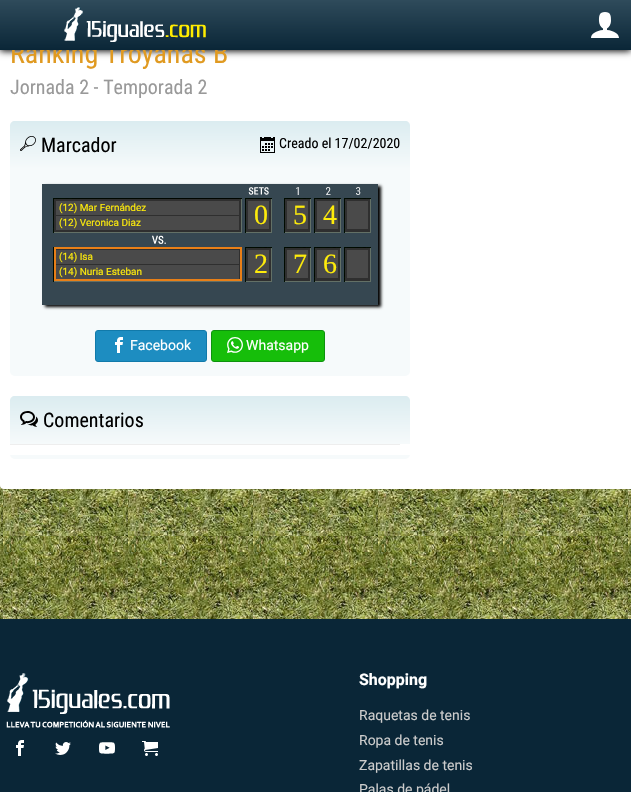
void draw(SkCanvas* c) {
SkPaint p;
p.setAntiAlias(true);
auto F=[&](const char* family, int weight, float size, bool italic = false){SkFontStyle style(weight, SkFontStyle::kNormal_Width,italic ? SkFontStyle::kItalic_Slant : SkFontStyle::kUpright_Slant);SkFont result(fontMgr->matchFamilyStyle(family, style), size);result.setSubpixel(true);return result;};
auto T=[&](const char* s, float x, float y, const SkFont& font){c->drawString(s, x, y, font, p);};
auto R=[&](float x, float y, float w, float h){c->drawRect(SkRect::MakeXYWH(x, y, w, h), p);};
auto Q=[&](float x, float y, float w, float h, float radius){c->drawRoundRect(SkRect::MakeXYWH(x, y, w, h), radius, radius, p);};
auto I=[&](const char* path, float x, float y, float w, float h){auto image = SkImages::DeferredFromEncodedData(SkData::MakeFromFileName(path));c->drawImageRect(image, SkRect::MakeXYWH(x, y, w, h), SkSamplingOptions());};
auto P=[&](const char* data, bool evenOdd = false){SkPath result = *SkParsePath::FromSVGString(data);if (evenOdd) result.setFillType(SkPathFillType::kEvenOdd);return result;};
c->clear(0xffffffff);
I("1.png",0,485,631,134);
p.setColor(0xffffffff);
Q(0,-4,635,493,4);
p.setColor(0xff000000);
p.setMaskFilter(SkMaskFilter::MakeBlur(kNormal_SkBlurStyle, 3.5));
c->drawRect(SkRect::MakeXYWH(0,1,631,50),p);
p.setMaskFilter(nullptr);
auto f1 = F("Roboto Condensed",400,28);
p.setColor(0xffe09a21);
T("Ranking Troyanas B",10,63,f1);
{
const SkColor colors[] = {0xff2f4b5b,0xff0a2637};
const float stops[] = {0,1};
const SkPoint ends[] = {{316,0}, {316,50}};
p.setShader(SkGradientShader::MakeLinear(ends, colors, stops, 2, SkTileMode::kClamp));
p.setAlpha(255);
}
R(0,0,631,50);
I("2.png",64,6,142,36);
I("3.png",591,12,28,26);
auto f2 = F("Roboto Condensed",400,20);
p.setShader(nullptr);
p.setColor(0xff999999);
T("Jornada 2 - Temporada 2",10,94,f2);
p.setColor(0xfff6fafb);
Q(10,121,400,255,5);
{
const SkColor colors[] = {0xffdbecf0,0xfff6fafb};
const float stops[] = {0,1};
const SkPoint ends[] = {{210,121}, {210,169}};
p.setShader(SkGradientShader::MakeLinear(ends, colors, stops, 2, SkTileMode::kClamp));
p.setAlpha(255);
}
c->drawPath(P("M15 121h390c3 0 5 2 5 5v43h-400v-43c0-3 2-5 5-5z"),p);
I("4.png",20,136,16,15);
p.setShader(nullptr);
p.setColor(0xff000000);
T("Marcador",41,152,f2);
I("5.png",260,137,15,16);
auto f3 = F("Roboto Condensed",400,14);
T("Creado el 17/02/2020",279,148,f3);
p.setMaskFilter(SkMaskFilter::MakeBlur(kNormal_SkBlurStyle, 1.5));
c->drawRect(SkRect::MakeXYWH(45,186,336,121),p);
p.setMaskFilter(nullptr);
p.setColor(0xff364751);
R(42,184,336,121);
I("6.png",53,187,318,95);
auto f4 = F("Roboto",400,10);
p.setColor(0xfffeeb0b);
T("(12) Mar Fernández",59,211,f4);
auto f5 = F("Liberation Serif",400,28);
T("0",254,224,f5);
T("5",293,224,f5);
T("4",323,224,f5);
T("(12) Veronica Diaz",59,226,f4);
p.setStroke(true);
p.setStrokeWidth(2);
p.setColor(0xffe87f17);
c->drawRect(SkRect::MakeXYWH(55,248,186,32),p);
p.setStroke(false);
p.setColor(0xfffeeb0b);
T("(14) Isa",59,260,f4);
T("2",254,273,f5);
T("7",293,273,f5);
T("6",323,273,f5);
T("(14) Nuria Esteban",59,275,f4);
p.setColor(0xff1d8dc1);
c->drawRoundRect(SkRect::MakeXYWH(95.5,330.5,111,31),2.5,2.5,p);
p.setStroke(true);
p.setStrokeWidth(1);
p.setColor(0xff117aaa);
c->drawRoundRect(SkRect::MakeXYWH(95.5,330.5,111,31),2.5,2.5,p);
I("7.png",115,337,8,16);
auto f6 = F("Roboto",400,14);
p.setStroke(false);
p.setColor(0xffffffff);
T("Facebook",130,350,f6);
p.setColor(0xff16be0a);
c->drawRoundRect(SkRect::MakeXYWH(211.5,330.5,113,31),2.5,2.5,p);
p.setStroke(true);
p.setColor(0xff0d930d);
c->drawRoundRect(SkRect::MakeXYWH(211.5,330.5,113,31),2.5,2.5,p);
I("8.png",227,337,16,16);
p.setStroke(false);
p.setColor(0xffffffff);
T("Whatsapp",246,350,f6);
p.setColor(0xfff6fafb);
Q(10,396,400,63,5);
{
const SkColor colors[] = {0xffdbecf0,0xfff6fafb};
const float stops[] = {0,1};
const SkPoint ends[] = {{210,396}, {210,444}};
p.setShader(SkGradientShader::MakeLinear(ends, colors, stops, 2, SkTileMode::kClamp));
p.setAlpha(255);
}
c->drawPath(P("M15 396h390c3 0 5 2 5 5v43h-400v-43c0-3 2-5 5-5z"),p);
I("9.png",20,411,18,16);
p.setShader(nullptr);
p.setColor(0xff000000);
T("Comentarios",43,427,f2);
p.setColor(0xffffffff);
R(10,444,400,11);
p.setColor(0xffeeeeee);
R(10,444,390,1);
p.setColor(0xff0a2637);
R(0,619,631,173);
I("10.png",6,673,164,55);
I("11.png",16,740,8,16);
I("12.png",55,742,16,13);
I("13.png",99,742,16,12);
I("14.png",142,741,16,15);
auto f7 = F("Roboto",700,16);
p.setColor(0xffffffff);
T("Shopping",359,685,f7);
p.setColor(0xffcccccc);
T("Raquetas de tenis",359,720,f6);
T("Ropa de tenis",359,745,f6);
T("Zapatillas de tenis",359,770,f6);
T("Palas de pádel",359,794,f6);
}
